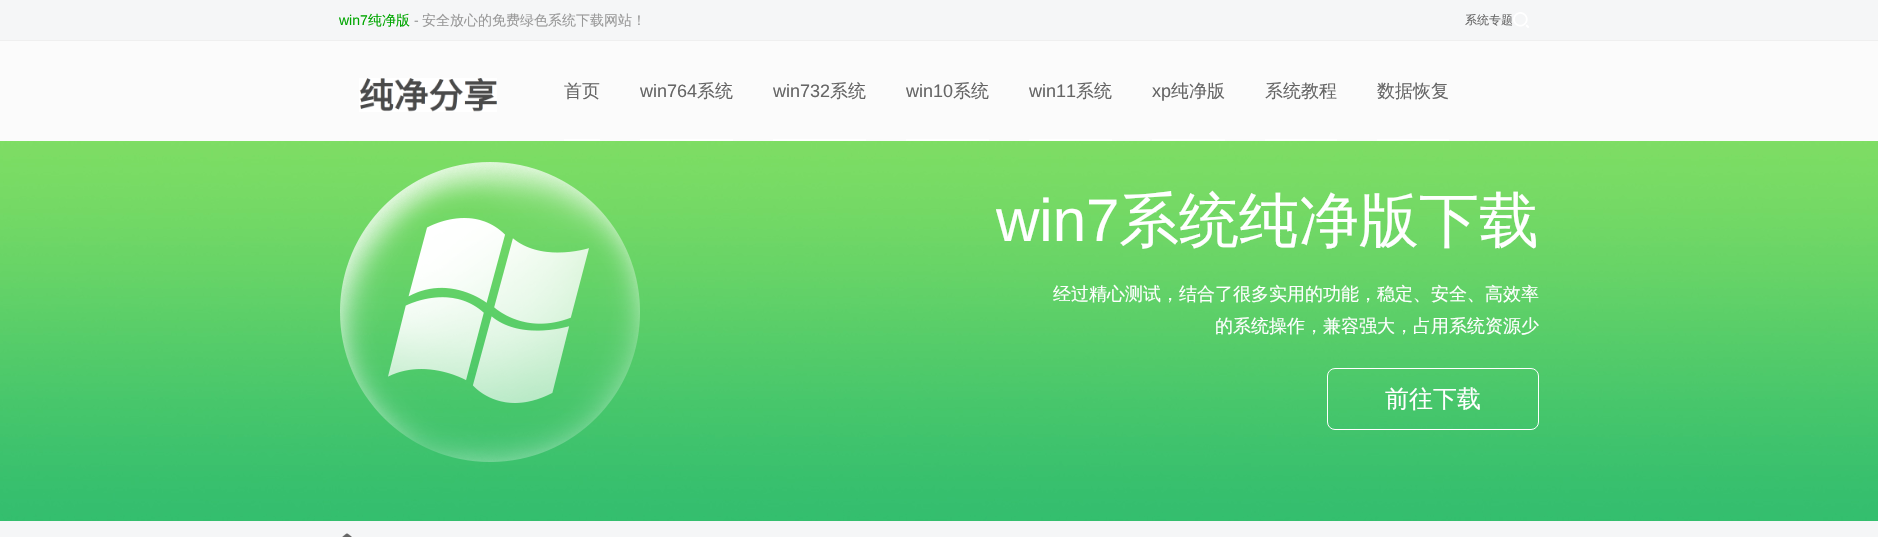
void draw(SkCanvas* c) {
SkPaint p;
p.setAntiAlias(true);
auto F=[&](const char* family, int weight, float size, bool italic = false){SkFontStyle style(weight, SkFontStyle::kNormal_Width,italic ? SkFontStyle::kItalic_Slant : SkFontStyle::kUpright_Slant);SkFont result(fontMgr->matchFamilyStyle(family, style), size);result.setSubpixel(true);return result;};
auto T=[&](const char* s, float x, float y, const SkFont& font){c->drawString(s, x, y, font, p);};
auto R=[&](float x, float y, float w, float h){c->drawRect(SkRect::MakeXYWH(x, y, w, h), p);};
auto I=[&](const char* path, float x, float y, float w, float h){auto image = SkImages::DeferredFromEncodedData(SkData::MakeFromFileName(path));c->drawImageRect(image, SkRect::MakeXYWH(x, y, w, h), SkSamplingOptions());};
c->clear(0xfff5f6f7);
p.setColor(0xffefefef);
R(0,40,1878,1);
auto f1 = F("Liberation Sans",400,14);
p.setColor(0xff00a600);
T("win7",339,25,f1);
auto f2 = F("WenQuanYi Zen Hei",500,14);
T("纯净版",368,25,f2);
p.setColor(0xff999999);
T("-",414,25,f1);
T("安全放心的免费绿色系统下载网站！",422,25,f2);
auto f3 = F("WenQuanYi Zen Hei",500,12);
p.setColor(0xff666666);
T("系统专题",1465,24,f3);
I("1.png",1513,12,16,16);
p.setColor(0xfffbfbfb);
R(0,41,1878,100);
I("2.png",359,78,138,34);
p.setColor(0xffffffff);
R(564,139,36,2);
auto f4 = F("WenQuanYi Zen Hei",500,18);
p.setColor(0xff666666);
T("首页",564,97,f4);
p.setColor(0xffffffff);
R(640,139,93,2);
auto f5 = F("Liberation Sans",400,18);
p.setColor(0xff666666);
T("win764",640,97,f5);
T("系统",697,97,f4);
p.setColor(0xffffffff);
R(773,139,93,2);
p.setColor(0xff666666);
T("win732",773,97,f5);
T("系统",830,97,f4);
p.setColor(0xffffffff);
R(906,139,83,2);
p.setColor(0xff666666);
T("win10",906,97,f5);
T("系统",953,97,f4);
p.setColor(0xffffffff);
R(1029,139,83,2);
p.setColor(0xff666666);
T("win11",1029,97,f5);
T("系统",1076,97,f4);
p.setColor(0xffffffff);
R(1152,139,73,2);
p.setColor(0xff666666);
T("xp",1152,97,f5);
T("纯净版",1171,97,f4);
p.setColor(0xffffffff);
R(1265,139,72,2);
p.setColor(0xff666666);
T("系统教程",1265,97,f4);
p.setColor(0xffffffff);
R(1377,139,72,2);
p.setColor(0xff666666);
T("数据恢复",1377,97,f4);
I("3.png",0,141,1878,380);
I("4.png",340,162,300,300);
auto f6 = F("Liberation Sans",400,60);
p.setColor(0xffffffff);
T("win7",996,241,f6);
auto f7 = F("WenQuanYi Zen Hei",500,60);
T("系统纯净版下载",1119,241,f7);
T("经过精心测试，结合了很多实用的功能，稳定、安全、高效率",1053,300,f4);
T("的系统操作，兼容强大，占用系统资源少",1215,332,f4);
p.setStroke(true);
p.setStrokeWidth(1);
c->drawRoundRect(SkRect::MakeXYWH(1327.5,368.5,211,61),7.5,7.5,p);
auto f8 = F("WenQuanYi Zen Hei",500,24);
p.setStroke(false);
T("前往下载",1385,407,f8);
I("5.png",342,533,10,4);
}
